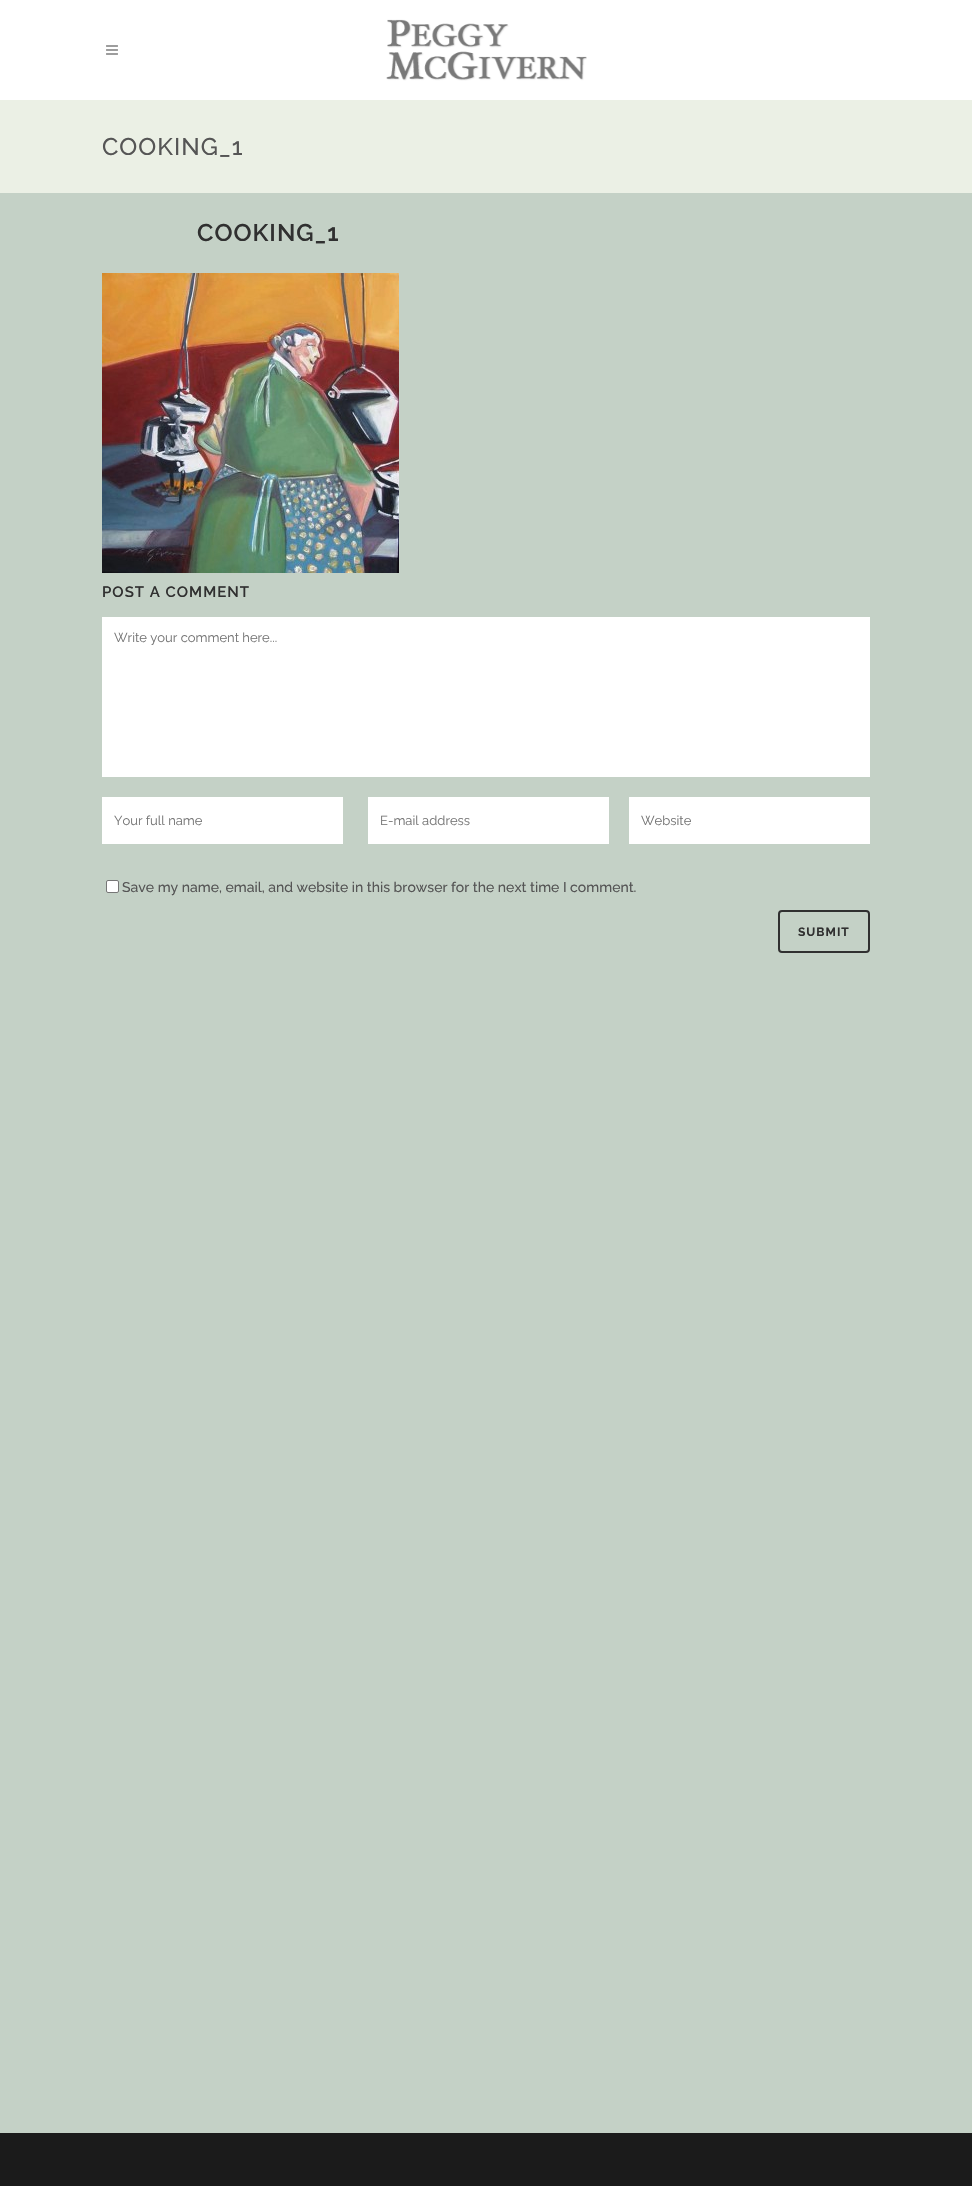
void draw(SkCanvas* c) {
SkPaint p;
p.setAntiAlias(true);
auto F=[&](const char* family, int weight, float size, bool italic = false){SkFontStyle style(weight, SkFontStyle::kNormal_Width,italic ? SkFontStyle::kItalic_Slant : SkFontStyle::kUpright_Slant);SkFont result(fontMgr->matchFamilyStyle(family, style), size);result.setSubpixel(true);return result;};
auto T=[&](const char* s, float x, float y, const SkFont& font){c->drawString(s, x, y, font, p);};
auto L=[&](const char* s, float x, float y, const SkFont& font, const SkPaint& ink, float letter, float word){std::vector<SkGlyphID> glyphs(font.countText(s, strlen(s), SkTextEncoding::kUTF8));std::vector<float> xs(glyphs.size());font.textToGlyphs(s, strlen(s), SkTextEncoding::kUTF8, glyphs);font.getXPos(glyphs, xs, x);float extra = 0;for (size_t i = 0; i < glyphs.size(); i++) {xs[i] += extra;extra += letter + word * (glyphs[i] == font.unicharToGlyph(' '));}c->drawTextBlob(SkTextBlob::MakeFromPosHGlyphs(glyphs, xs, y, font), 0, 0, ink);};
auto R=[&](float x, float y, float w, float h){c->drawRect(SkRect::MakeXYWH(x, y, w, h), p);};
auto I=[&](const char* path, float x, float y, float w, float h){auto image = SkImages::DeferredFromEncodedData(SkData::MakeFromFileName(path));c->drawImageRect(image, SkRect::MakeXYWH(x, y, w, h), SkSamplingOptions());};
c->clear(0xffc4d1c6);
p.setColor(0xffffffff);
R(0,0,972,100);
I("1.png",106,45,12,10);
I("2.png",386,19,201,62);
p.setColor(0xffebf0e5);
R(0,100,972,93);
auto f1 = F("Raleway",500,24);
p.setColor(0xff555555);
L("COOKING_1",102,155,f1,p,1,0);
auto f2 = F("Raleway",600,24);
p.setColor(0xff303030);
L("COOKING_1",197,241,f2,p,1,0);
I("3.png",102,273,297,300);
auto f3 = F("Raleway",600,15);
L("POST A COMMENT",102,597,f3,p,1,0);
p.setColor(0xffffffff);
R(102,617,768,160);
auto f4 = F("Raleway",400,13);
p.setColor(0xff757575);
T("Write your comment here...",114,642,f4);
p.setColor(0xffffffff);
R(102,797,241,47);
p.setColor(0xff757575);
T("Your full name",114,825,f4);
p.setColor(0xffffffff);
R(368,797,241,47);
p.setColor(0xff757575);
T("E-mail address",380,825,f4);
p.setColor(0xffffffff);
R(629,797,241,47);
p.setColor(0xff757575);
T("Website",641,825,f4);
p.setColor(0xffffffff);
c->drawRoundRect(SkRect::MakeXYWH(106.5,880.5,12,12),1.5,1.5,p);
p.setStroke(true);
p.setStrokeWidth(1);
p.setColor(0xff767676);
c->drawRoundRect(SkRect::MakeXYWH(106.5,880.5,12,12),1.5,1.5,p);
auto f5 = F("Raleway",500,14);
p.setStroke(false);
p.setColor(0xff555555);
T("Save my name, email, and website in this browser for the next time I comment.",122,892,f5);
p.setStroke(true);
p.setStrokeWidth(2);
p.setColor(0xff303030);
c->drawRoundRect(SkRect::MakeXYWH(779,911,90,41),3,3,p);
auto f6 = F("Raleway",700,12);
p.setStroke(false);
L("SUBMIT",798,936,f6,p,1,0);
p.setColor(0xff1b1b1b);
R(0,2133,972,53);
}
